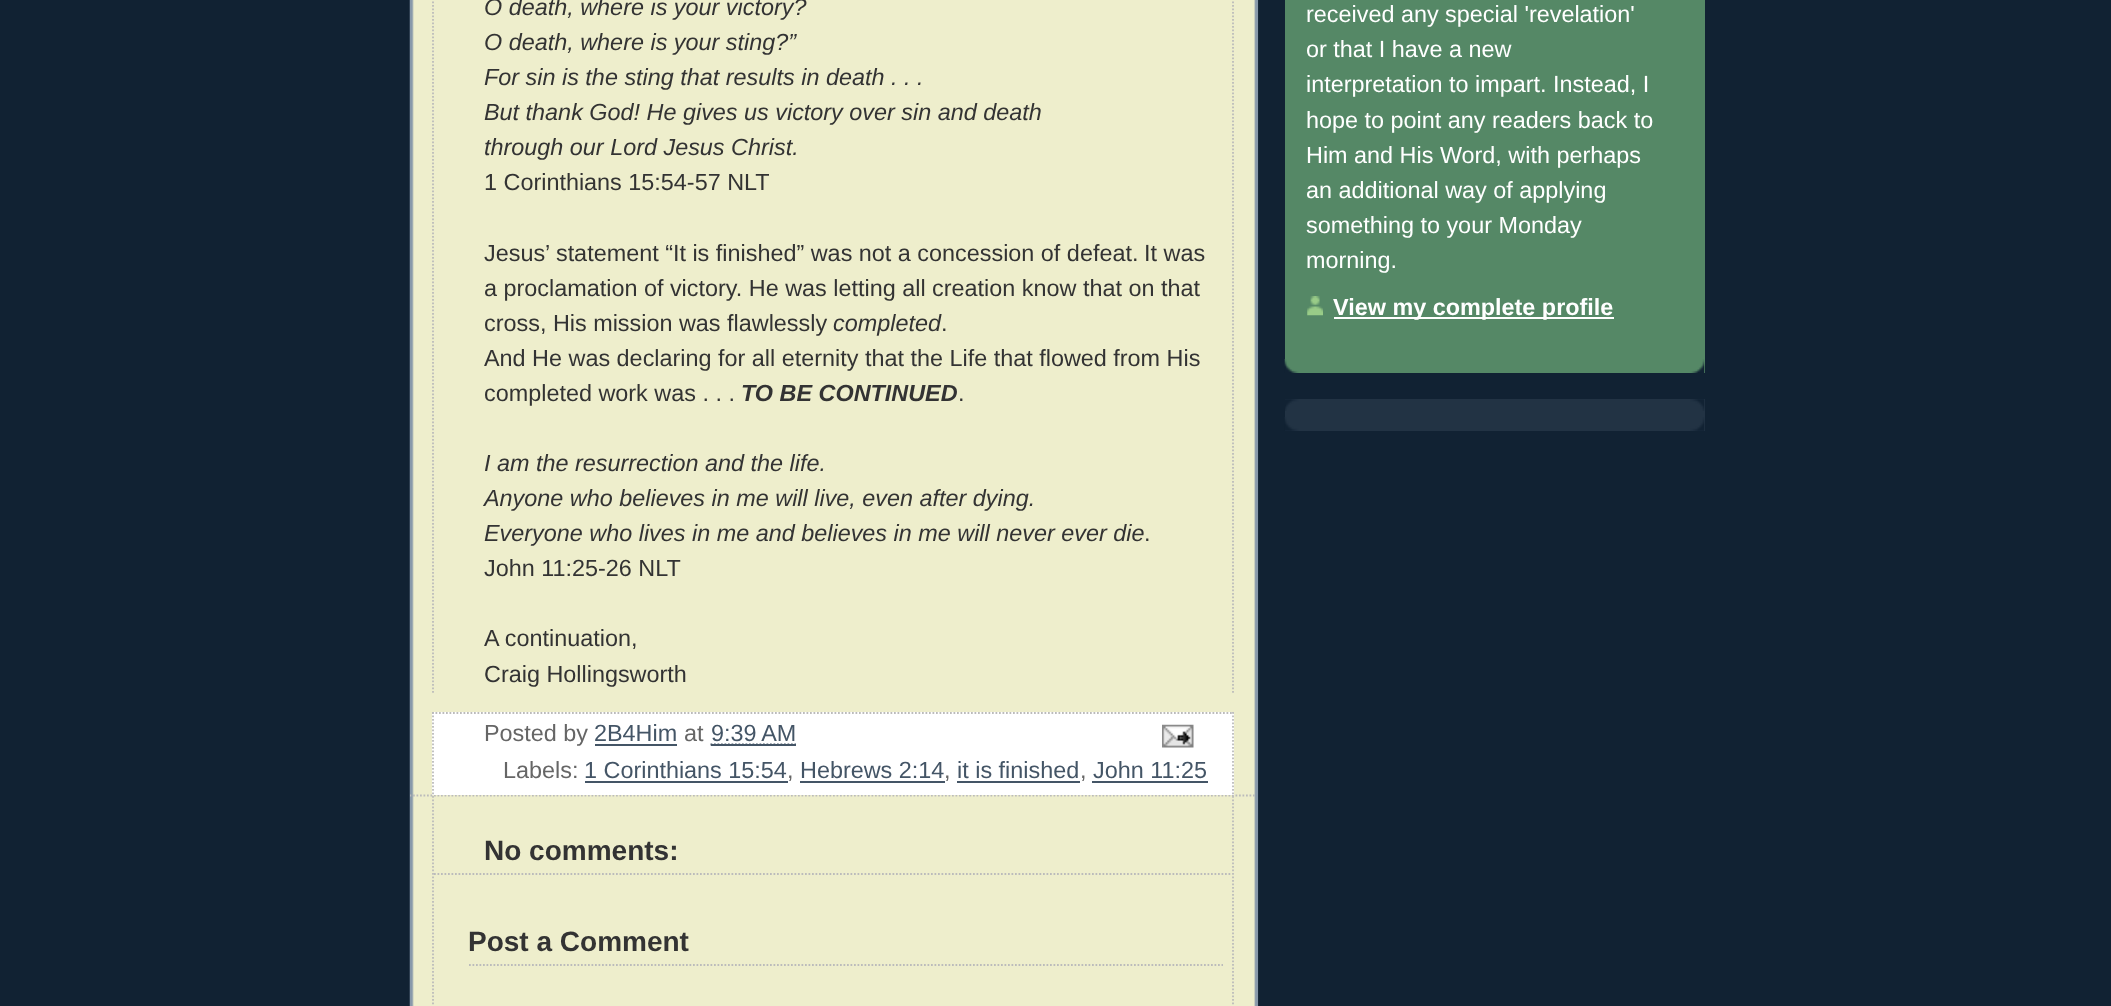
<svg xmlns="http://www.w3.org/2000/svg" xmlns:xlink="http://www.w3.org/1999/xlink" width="2111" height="1006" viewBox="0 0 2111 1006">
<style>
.cls-1{font:italic 23.4px Liberation Sans;fill:#333333}
.cls-2{font:23.4px Liberation Sans;fill:#333333}
.cls-3{font:italic bold 23.4px Liberation Sans;fill:#333333}
.cls-4{font:23.4px Liberation Sans;fill:#666666}
.cls-5{font:23.4px Liberation Sans;fill:#445566}
.cls-6{font:bold 28px Liberation Sans;fill:#333333}
.cls-7{font:23.4px Liberation Sans;fill:#ffffff}
.cls-8{font:bold 23.4px Liberation Sans;fill:#ffffff}
</style>
<defs>
<clipPath id="clip1"><rect x="410" y="0" width="848" height="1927"/></clipPath>
</defs>
<rect width="100%" height="100%" fill="#112233"/>
<rect fill="#eeeecc" x="412" y="0" width="844" height="1006"/>
<image xlink:href="image0.png" x="409" y="0" width="850" height="1006"/>
<g clip-path="url(#clip1)">
<path fill="none" stroke="#bbbbbb" stroke-width="1.8" stroke-dasharray="1.75 1.75" d="M409.5 795.5H1256.5"/>
</g>
<path fill="none" stroke="#bbbbbb" stroke-width="1.8" stroke-dasharray="1.75 1.75" d="M1233-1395V693"/>
<path fill="none" stroke="#bbbbbb" stroke-width="1.8" stroke-dasharray="1.75 1.75" d="M433-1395V693"/>
<rect fill="#ffffff" x="432" y="712" width="802" height="83"/>
<path fill="none" stroke="#bbbbbb" stroke-width="1.8" stroke-dasharray="1.75 1.75" d="M432 713H1234"/>
<path fill="none" stroke="#bbbbbb" stroke-width="1.8" stroke-dasharray="1.75 1.75" d="M1233 712V794.5"/>
<path fill="none" stroke="#bbbbbb" stroke-width="1.8" stroke-dasharray="1.75 1.75" d="M433 712V794.5"/>
<rect fill="#445566" x="595" y="744" width="82" height="2"/>
<path fill="none" stroke="#445566" stroke-width="1.8" stroke-dasharray="1.75 1.75" d="M710.5 744.5H796"/>
<rect fill="#445566" x="711" y="744" width="85" height="2"/>
<image xlink:href="image1.png" x="1162" y="724" width="32" height="24"/>
<rect fill="#445566" x="585" y="781" width="203" height="2"/>
<rect fill="#445566" x="800" y="781" width="145" height="2"/>
<rect fill="#445566" x="957" y="781" width="123" height="2"/>
<rect fill="#445566" x="1092" y="781" width="116" height="2"/>
<path fill="none" stroke="#bbbbbb" stroke-width="1.8" stroke-dasharray="1.75 1.75" d="M1233 796V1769"/>
<path fill="none" stroke="#bbbbbb" stroke-width="1.8" stroke-dasharray="1.75 1.75" d="M433 796V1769"/>
<path fill="none" stroke="#bbbbbb" stroke-width="1.8" stroke-dasharray="1.75 1.75" d="M434 874H1232"/>
<path fill="none" stroke="#bbbbbb" stroke-width="1.8" stroke-dasharray="1.75 1.75" d="M469 965H1223"/>
<rect fill="#558866" x="1285" y="0" width="420" height="373"/>
<image xlink:href="image2.png" x="1284" y="359" width="421" height="14"/>
<image xlink:href="image3.png" x="1307" y="296" width="16" height="20"/>
<rect fill="#ffffff" x="1334" y="317" width="280" height="2"/>
<rect fill="#223344" x="1285" y="399" width="420" height="32"/>
<image xlink:href="image4.png" x="1285" y="399" width="420" height="12"/>
<image xlink:href="image5.png" x="1284" y="417" width="421" height="14"/>
<text class="cls-1"><tspan x="484" y="15">O death, where is your victory?</tspan><tspan x="484" y="50">O death, where is your sting?”</tspan><tspan x="484" y="85">For sin is the sting that results in death . . .</tspan><tspan x="484" y="120">But thank God! He gives us victory over sin and death</tspan><tspan x="484" y="155">through our Lord Jesus Christ.</tspan></text>
<text class="cls-2" x="484" y="190">1 Corinthians 15:54-57 NLT</text>
<text class="cls-2" x="484" y="261">Jesus’ statement “It is finished” was not a concession of defeat.</text>
<text class="cls-2" x="1144" y="261">It was</text>
<text class="cls-2"><tspan x="484" y="296">a proclamation of victory. He was letting all creation know that on that</tspan><tspan x="484" y="331">cross, His mission was flawlessly</tspan></text>
<text class="cls-1" x="833" y="331">completed</text>
<text class="cls-2" x="941" y="331">.</text>
<text class="cls-2"><tspan x="484" y="366">And He was declaring for all eternity that the Life that flowed from His</tspan><tspan x="484" y="401">completed work was . . .</tspan></text>
<text class="cls-3" x="741" y="401">TO BE CONTINUED</text>
<text class="cls-2" x="958" y="401">.</text>
<text class="cls-1"><tspan x="484" y="471">I am the resurrection and the life.</tspan><tspan x="484" y="506">Anyone who believes in me will live, even after dying.</tspan><tspan x="484" y="541">Everyone who lives in me and believes in me will never ever die</tspan></text>
<text class="cls-2" x="1144" y="541">.</text>
<text class="cls-2" x="484" y="576">John 11:25-26 NLT</text>
<text class="cls-2"><tspan x="484" y="646">A continuation,</tspan><tspan x="484" y="682">Craig Hollingsworth</tspan></text>
<text class="cls-4" x="484" y="741">Posted by</text>
<text class="cls-5" x="594" y="741">2B4Him</text>
<text class="cls-4" x="684" y="741">at</text>
<text class="cls-5" x="711" y="741">9:39 AM</text>
<text class="cls-4" x="503" y="778">Labels:</text>
<text class="cls-5" x="584" y="778">1 Corinthians 15:54</text>
<text class="cls-4" x="787" y="778">,</text>
<text class="cls-5" x="800" y="778">Hebrews 2:14</text>
<text class="cls-4" x="944" y="778">,</text>
<text class="cls-5" x="957" y="778">it is finished</text>
<text class="cls-4" x="1080" y="778">,</text>
<text class="cls-5" x="1093" y="778">John 11:25</text>
<text class="cls-6" x="484" y="860">No comments:</text>
<text class="cls-6" x="468" y="951">Post a Comment</text>
<text class="cls-7"><tspan x="1306" y="22">received any special 'revelation'</tspan><tspan x="1306" y="57">or that I have a new</tspan><tspan x="1306" y="92">interpretation to impart. Instead, I</tspan><tspan x="1306" y="128">hope to point any readers back to</tspan><tspan x="1306" y="163">Him and His Word, with perhaps</tspan><tspan x="1306" y="198">an additional way of applying</tspan><tspan x="1306" y="233">something to your Monday</tspan><tspan x="1306" y="268">morning.</tspan></text>
<text class="cls-8" x="1333" y="315">View my complete profile</text>
</svg>
